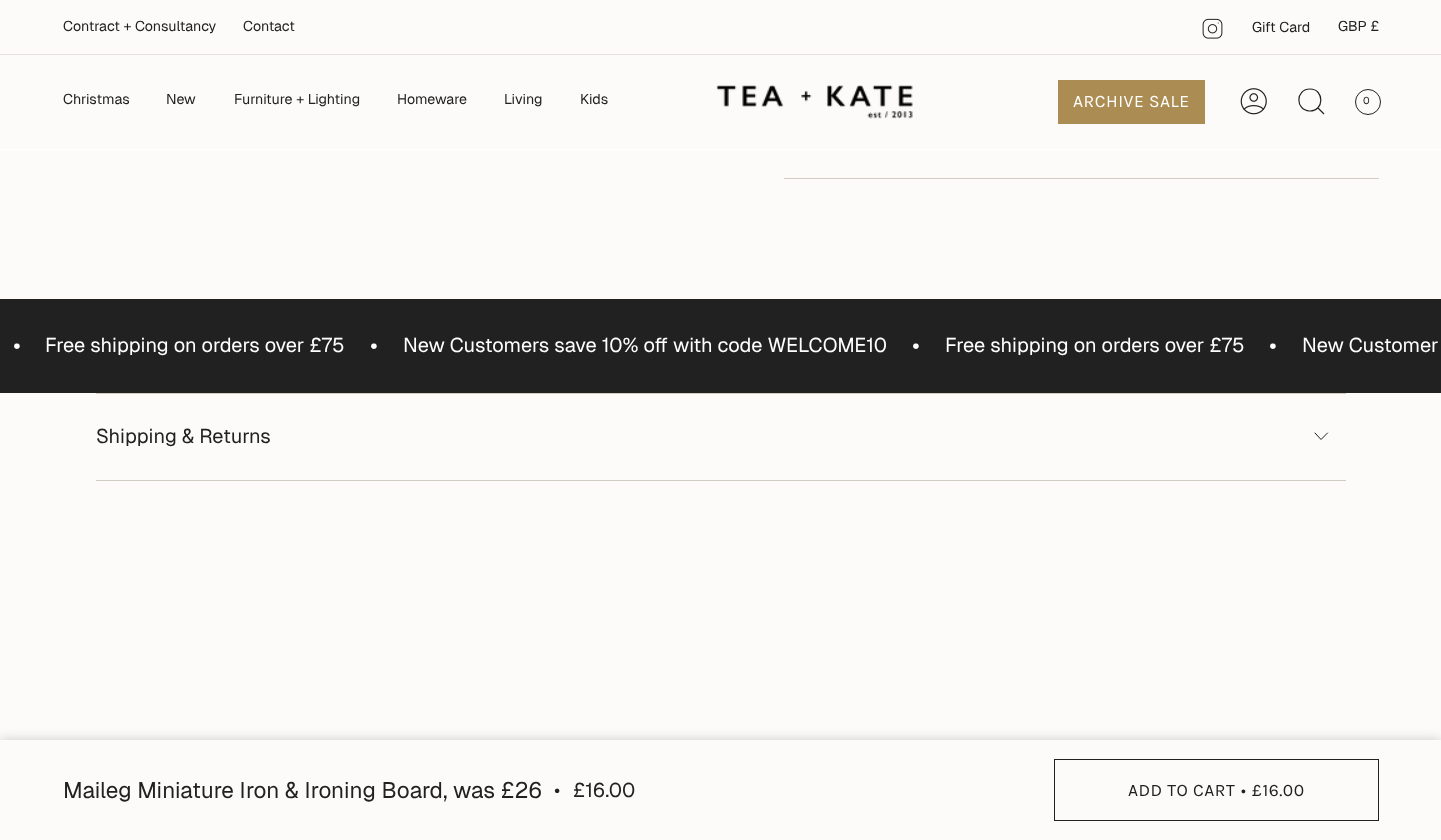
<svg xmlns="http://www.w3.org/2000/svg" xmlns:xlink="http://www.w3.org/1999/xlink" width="1441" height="840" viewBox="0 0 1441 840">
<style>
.cls-1{font:14.25px Geist;fill:#212121}
.cls-2{font:17.5px Karla;letter-spacing:0.5px;fill:#ffffff}
.cls-3{font:10px Geist;fill:#212121}
.cls-4{font:25px Geist;fill:#ffffff}
.cls-5{font:20px Geist;fill:#ffffff}
.cls-6{font:20px Geist;fill:#212121}
.cls-7{font:22.5px Geist;fill:#212121}
.cls-8{font:17.5px Karla;letter-spacing:0.5px;fill:#212121}
</style>
<rect width="100%" height="100%" fill="#fcfbf9"/>
<image xlink:href="image0.png" x="1202" y="18" width="21" height="21"/>
<rect fill="#e7e4df" x="0" y="54" width="1441" height="1"/>
<image xlink:href="image1.png" x="716" y="85" width="197" height="34"/>
<rect fill="#ab8c52" x="1058" y="80" width="147" height="44"/>
<image xlink:href="image2.png" x="1240" y="88" width="27" height="27"/>
<path fill="none" stroke="#212121" stroke-width="1.2" d="M1310 89C1324.5 89 1324.5 111.5 1309.5 111C1295 110 1295.5 89 1310 89ZM1317.5 107.5L1324 114"/>
<circle fill="none" stroke="#212121" cx="1368" cy="102" r="12.5"/>
<rect fill="#ffffff" x="0" y="149" width="1441" height="1"/>
<rect fill="#212121" x="0" y="299" width="1441" height="94"/>
<rect fill="#d1cdc4" x="96" y="393" width="1250" height="1"/>
<rect fill="#d1cdc4" x="96" y="480" width="1250" height="1"/>
<path fill="none" stroke="#212121" stroke-linecap="round" stroke-linejoin="round" d="M1315 433L1321 439.5L1327.5 433"/>
<rect fill="#d1cdc4" x="784" y="178" width="595" height="1"/>
<rect fill="#000000" fill-opacity="0.2" filter="blur(6px)" x="0" y="740" width="1441" height="100"/>
<rect fill="#fcfbf9" x="0" y="740" width="1441" height="100"/>
<rect fill="none" stroke="#212121" x="1054.5" y="759.5" width="324" height="61"/>
<text class="cls-1" x="63" y="31">Contract + Consultancy</text>
<text class="cls-1" x="243" y="31">Contact</text>
<text class="cls-1" x="1252" y="32">Gift Card</text>
<text class="cls-1" x="1338" y="31">GBP £</text>
<text class="cls-1" x="63" y="104">Christmas</text>
<text class="cls-1" x="166" y="104">New</text>
<text class="cls-1" x="234" y="104">Furniture + Lighting</text>
<text class="cls-1" x="397" y="104">Homeware</text>
<text class="cls-1" x="504" y="104">Living</text>
<text class="cls-1" x="580" y="104">Kids</text>
<text class="cls-2" x="1073" y="107">ARCHIVE SALE</text>
<text class="cls-3" x="1363" y="104">0</text>
<text class="cls-4" x="13" y="354">•</text>
<text class="cls-5" x="45" y="352">Free shipping on orders over £75</text>
<text class="cls-4" x="370" y="354">•</text>
<text class="cls-5" x="403" y="352">New Customers save 10% off with code WELCOME10</text>
<text class="cls-4" x="912" y="354">•</text>
<text class="cls-5" x="945" y="352">Free shipping on orders over £75</text>
<text class="cls-4" x="1269" y="354">•</text>
<text class="cls-5" x="1302" y="352">New Customer</text>
<text class="cls-6" x="96" y="443">Shipping &amp; Returns</text>
<text class="cls-7" x="63" y="798">Maileg Miniature Iron &amp; Ironing Board, was £26</text>
<text class="cls-6" x="554" y="797">•</text>
<text class="cls-6" x="573" y="797">£16.00</text>
<text class="cls-8" x="1128" y="796">ADD TO CART</text>
<text class="cls-8" x="1241" y="796">•</text>
<text class="cls-8" x="1252" y="796">£16.00</text>
</svg>
